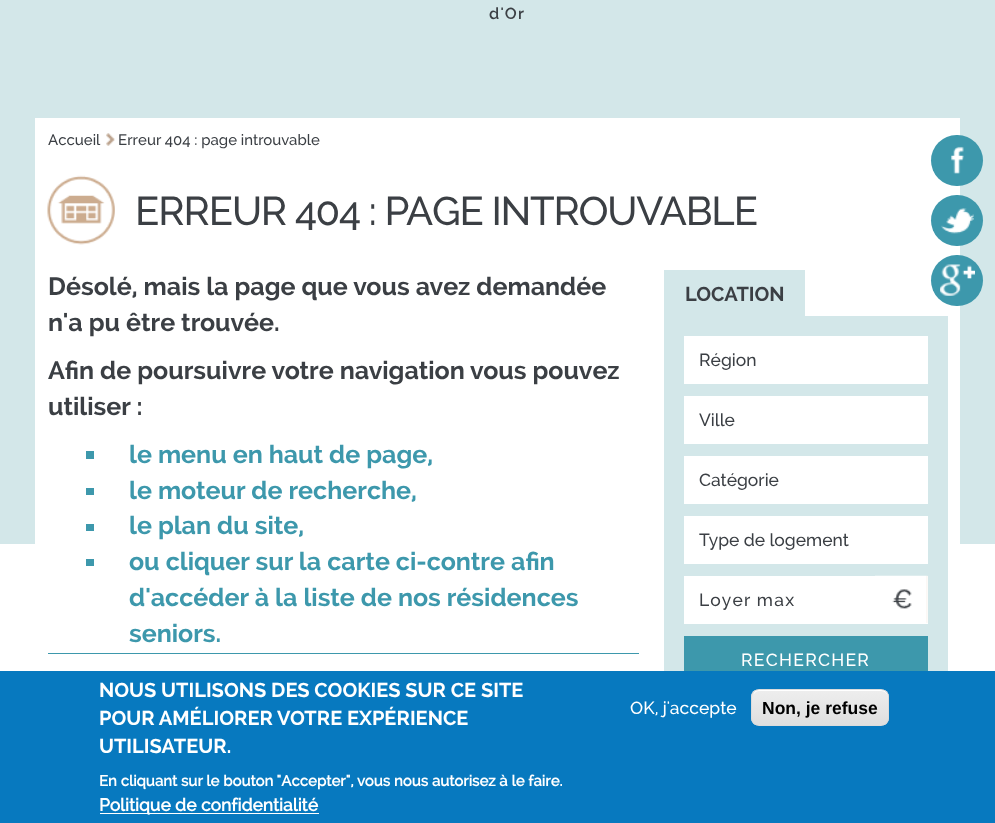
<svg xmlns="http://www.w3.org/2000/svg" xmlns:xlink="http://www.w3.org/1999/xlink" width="995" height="823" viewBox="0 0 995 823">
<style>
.cls-1{font:600 16px Raleway;letter-spacing:1.25px;fill:#3b3f44}
.cls-2{font:500 15px Raleway;fill:#3b3f44}
.cls-3{font:500 40px Raleway;letter-spacing:-1.25px;fill:#3b3f44}
.cls-4{font:bold 25px Raleway;fill:#3b3f44}
.cls-5{font:bold 25px Raleway;fill:#3d98ac}
.cls-6{font:bold 20px Raleway;fill:#3b3f44}
.cls-7{font:500 17.5px Raleway;fill:#3b3f44}
.cls-8{font:500 17.5px Raleway;letter-spacing:1.25px;fill:#3b3f44}
.cls-9{font:500 17.5px Raleway;letter-spacing:1.25px;fill:#ffffff}
.cls-10{font:bold 20px Raleway;fill:#ffffff}
.cls-11{font:bold 15px 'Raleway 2';fill:#ffffff}
.cls-12{font:bold 17.5px 'Raleway 2';fill:#ffffff}
.cls-13{font:500 17.5px Raleway;fill:#ffffff}
.cls-14{font:bold 17.5px Liberation Sans;fill:#000000}
</style>
<defs>
<clipPath id="clip1"><rect x="751" y="689" width="138" height="37" rx="8"/></clipPath>
<linearGradient id="g1" gradientUnits="userSpaceOnUse" x1="820" y1="690" x2="820" y2="725"><stop offset="0.05" stop-color="#ededed"/><stop offset="1" stop-color="#dfdfdf"/></linearGradient>
</defs>
<rect width="100%" height="100%" fill="#ffffff"/>
<rect fill="#d3e7e9" x="0" y="0" width="995" height="544"/>
<rect fill="#ffffff" x="35" y="118" width="925" height="426"/>
<image xlink:href="image0.png" x="106" y="133" width="9" height="13"/>
<image xlink:href="image1.png" x="47" y="175" width="68" height="70"/>
<rect fill="#3d98ac" x="48" y="653" width="591" height="1"/>
<rect fill="#3d98ac" x="86" y="451" width="8" height="8"/>
<rect fill="#3d98ac" x="86" y="488" width="8" height="7"/>
<rect fill="#3d98ac" x="86" y="524" width="8" height="7"/>
<rect fill="#3d98ac" x="86" y="559" width="8" height="7"/>
<rect fill="#d3e7e9" x="664" y="270" width="141" height="46"/>
<rect fill="#d3e7e9" x="664" y="316" width="284" height="355"/>
<rect fill="#ffffff" x="684" y="336" width="244" height="48"/>
<rect fill="#ffffff" x="684" y="396" width="244" height="48"/>
<rect fill="#ffffff" x="684" y="456" width="244" height="48"/>
<rect fill="#ffffff" x="684" y="516" width="244" height="48"/>
<rect fill="#ffffff" x="684" y="576" width="244" height="48"/>
<image xlink:href="image2.png" x="875" y="575" width="53" height="48"/>
<rect fill="#3d98ac" x="684" y="636" width="244" height="35"/>
<rect fill="#3d98ac" x="931" y="135" width="52" height="51" rx="25.5"/>
<image xlink:href="image3.png" x="951" y="146" width="13" height="28"/>
<rect fill="#3d98ac" x="931" y="195" width="52" height="51" rx="25.5"/>
<image xlink:href="image4.png" x="941" y="208" width="33" height="26"/>
<rect fill="#3d98ac" x="931" y="255" width="52" height="51" rx="25.5"/>
<image xlink:href="image5.png" x="940" y="264" width="35" height="32"/>
<rect fill="#0779bf" x="0" y="671" width="995" height="152"/>
<rect fill="#ffffff" x="100" y="813" width="219" height="1"/>
<g clip-path="url(#clip1)">
<rect fill="url(#g1)" x="751" y="690" width="138" height="35"/>
</g>
<path fill="#ffffff" d="M759 691H881C885 691 888 694 888 698V696C888 693 885 690 882 690H759C757 690 754 691 754 694C755 692 757 691 759 691Z"/>
<rect fill="none" stroke="#dcdcdc" x="751.5" y="689.5" width="137" height="36" rx="7.5"/>
<text class="cls-1" x="489" y="19">d'Or</text>
<text class="cls-2" x="48" y="145">Accueil</text>
<text class="cls-2" x="118" y="145">Erreur 404 : page introuvable</text>
<text class="cls-3" x="135" y="225">ERREUR 404 : PAGE INTROUVABLE</text>
<text class="cls-4"><tspan x="48" y="295">Désolé, mais la page que vous avez demandée</tspan><tspan x="48" y="331">n'a pu être trouvée.</tspan><tspan x="48" y="379">Afin de poursuivre votre navigation vous pouvez</tspan><tspan x="48" y="415">utiliser :</tspan></text>
<text class="cls-5"><tspan x="129" y="463">le menu en haut de page,</tspan><tspan x="129" y="499">le moteur de recherche,</tspan><tspan x="129" y="534">le plan du site,</tspan><tspan x="129" y="570">ou cliquer sur la carte ci-contre afin</tspan><tspan x="129" y="606">d'accéder à la liste de nos résidences</tspan><tspan x="129" y="642">seniors.</tspan></text>
<text class="cls-6" x="685" y="301">LOCATION</text>
<text class="cls-7" x="699" y="366">Région</text>
<text class="cls-7" x="699" y="426">Ville</text>
<text class="cls-7" x="699" y="486">Catégorie</text>
<text class="cls-7" x="699" y="546">Type de logement</text>
<text class="cls-8" x="699" y="606">Loyer max</text>
<text class="cls-9" x="741" y="666">RECHERCHER</text>
<text class="cls-10"><tspan x="99" y="697">NOUS UTILISONS DES COOKIES SUR CE SITE</tspan><tspan x="99" y="725">POUR AMÉLIORER VOTRE EXPÉRIENCE</tspan><tspan x="99" y="753">UTILISATEUR.</tspan></text>
<text class="cls-11" x="99" y="786">En cliquant sur le bouton "Accepter", vous nous autorisez à le faire.</text>
<text class="cls-12" x="99" y="811">Politique de confidentialité</text>
<text class="cls-13" x="630" y="714">OK, j'accepte</text>
<text class="cls-14" x="762" y="714">Non, je refuse</text>
</svg>
